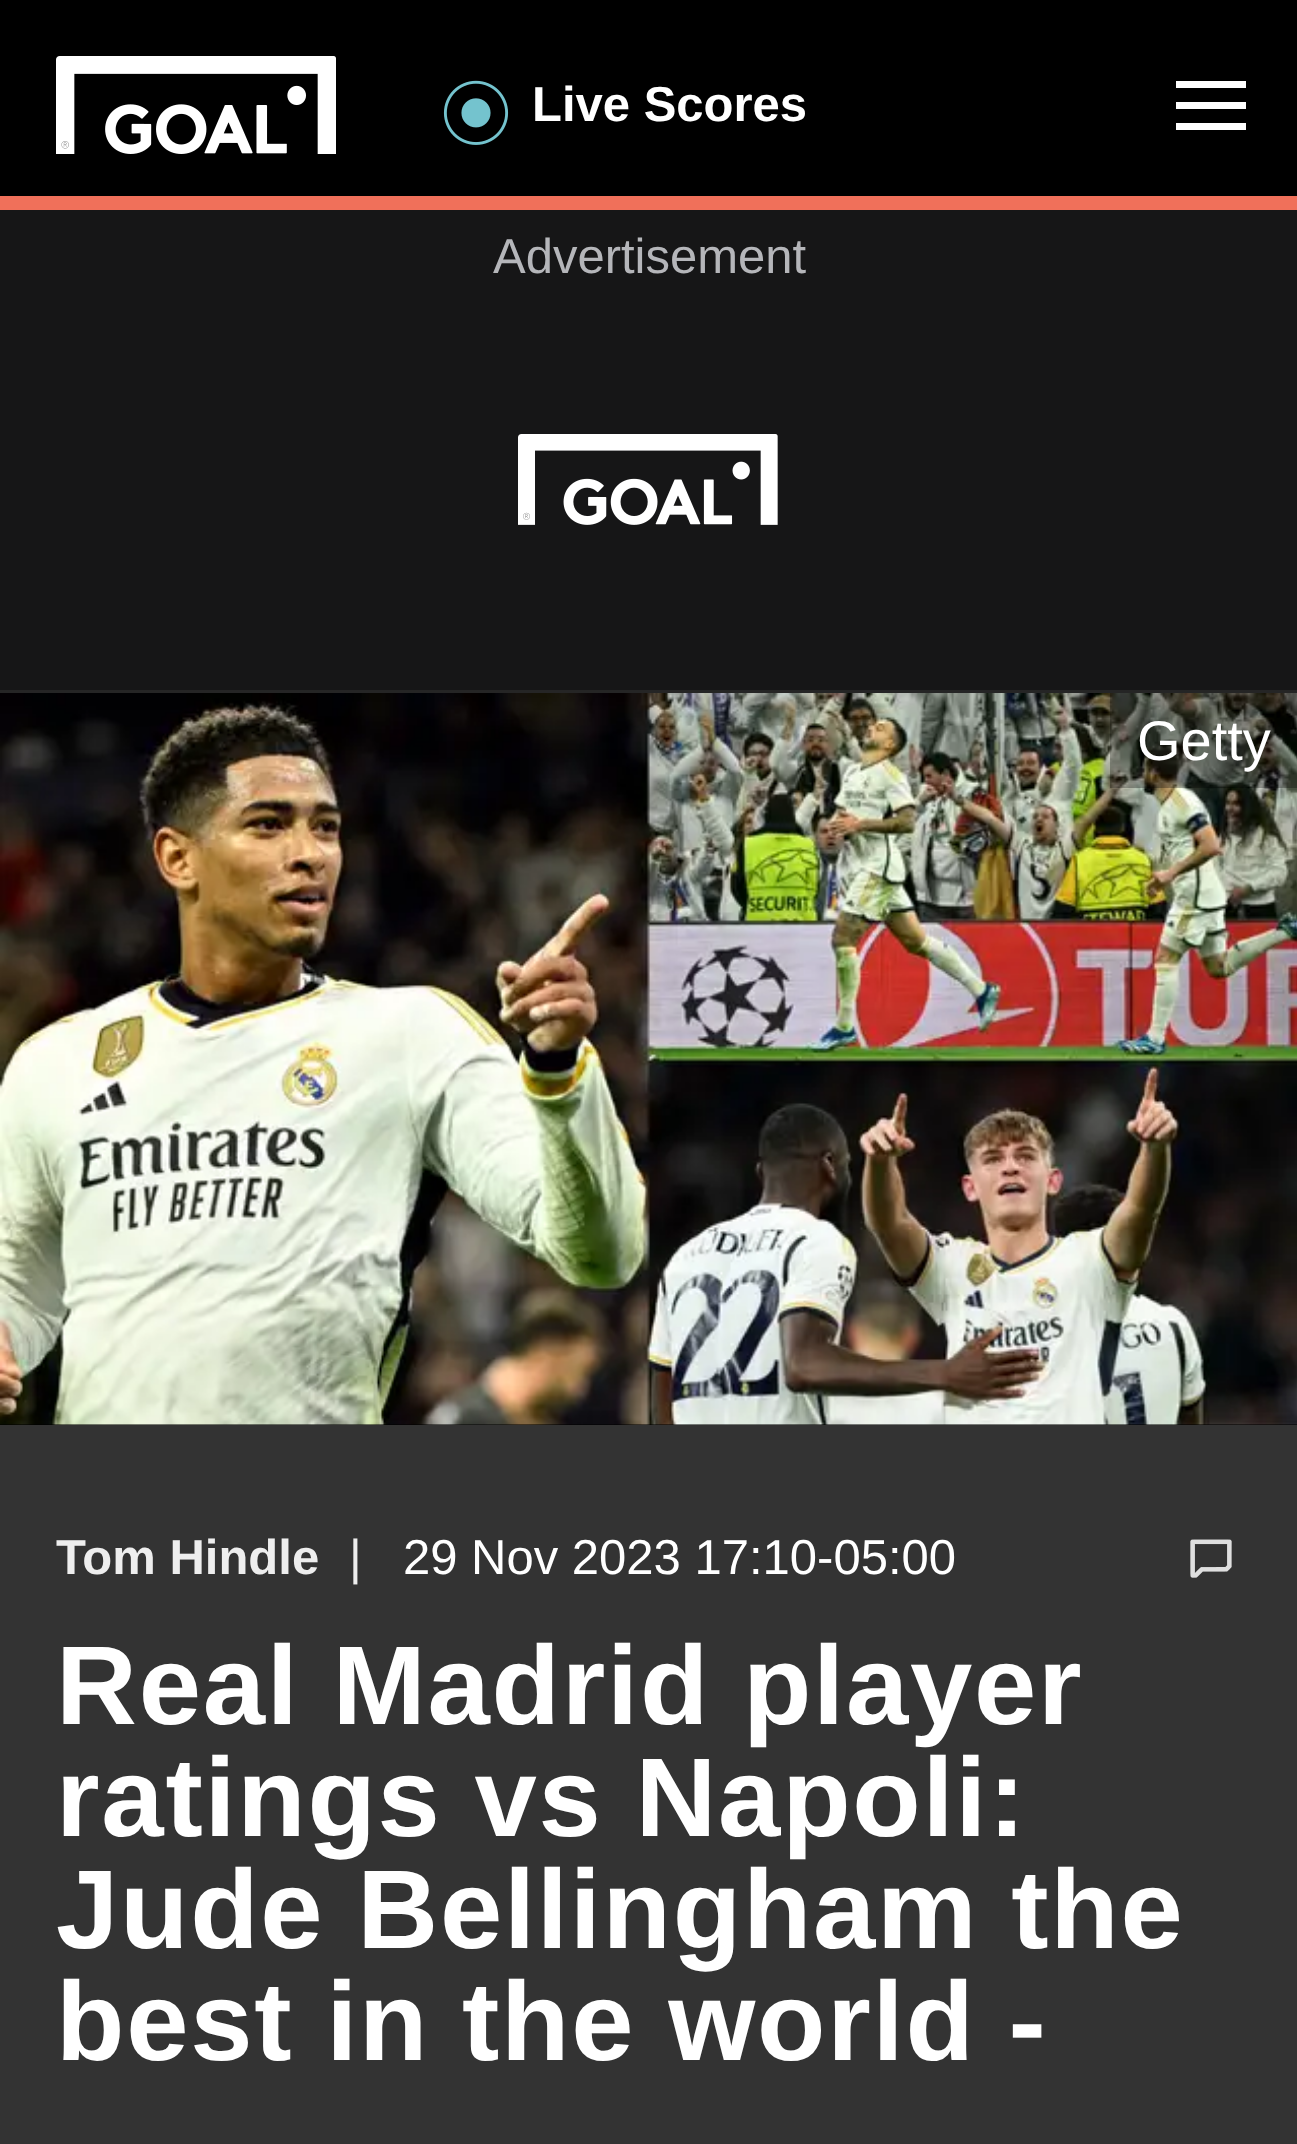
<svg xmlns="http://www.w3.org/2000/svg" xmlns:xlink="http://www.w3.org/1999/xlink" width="1297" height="2144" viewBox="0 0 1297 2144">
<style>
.cls-1{font:bold 49px Liberation Sans;fill:#ffffff}
.cls-2{font:49px Liberation Sans;fill:#b5b6ba}
.cls-3{font:56px Liberation Sans;fill:#ffffff}
.cls-4{font:bold 49px Liberation Sans;fill:#eeeeee}
.cls-5{font:49px Liberation Sans;fill:#eeeeee}
.cls-6{font:49px Liberation Sans;fill:#ffffff}
.cls-7{font:bold 112px Liberation Sans;letter-spacing:1.75px;fill:#ffffff}
</style>
<rect width="100%" height="100%" fill="#252525"/>
<rect fill="#000000" x="0" y="0" width="1297" height="196"/>
<rect fill="#f0705a" x="0" y="196" width="1297" height="14"/>
<image xlink:href="image0.png" x="56" y="56" width="280" height="98"/>
<image xlink:href="image1.png" x="443" y="80" width="66" height="65"/>
<rect fill="#ffffff" x="1176" y="81" width="70" height="7"/>
<rect fill="#ffffff" x="1176" y="102" width="70" height="7"/>
<rect fill="#ffffff" x="1176" y="123" width="70" height="7"/>
<rect fill="#161617" x="0" y="210" width="1297" height="480"/>
<image xlink:href="image2.png" x="518" y="434" width="260" height="91"/>
<rect fill="#000000" x="0" y="1424" width="1297" height="1"/>
<image xlink:href="image3.png" x="0" y="693" width="1297" height="732"/>
<rect fill="#000000" fill-opacity="0.3" x="1110" y="693" width="187" height="95"/>
<rect fill="#333333" x="0" y="1425" width="1297" height="719"/>
<image xlink:href="image4.png" x="1190" y="1539" width="42" height="39"/>
<text class="cls-1" x="532" y="121">Live Scores</text>
<text class="cls-2" x="493" y="273">Advertisement</text>
<text class="cls-3" x="1137" y="760">Getty</text>
<text class="cls-4" x="56" y="1574">Tom Hindle</text>
<text class="cls-5" x="349" y="1574">|</text>
<text class="cls-6" x="403" y="1574">29 Nov 2023 17:10-05:00</text>
<text class="cls-7"><tspan x="56" y="1724">Real Madrid player</tspan><tspan x="56" y="1836">ratings vs Napoli:</tspan><tspan x="56" y="1948">Jude Bellingham the</tspan><tspan x="56" y="2060">best in the world -</tspan></text>
</svg>
